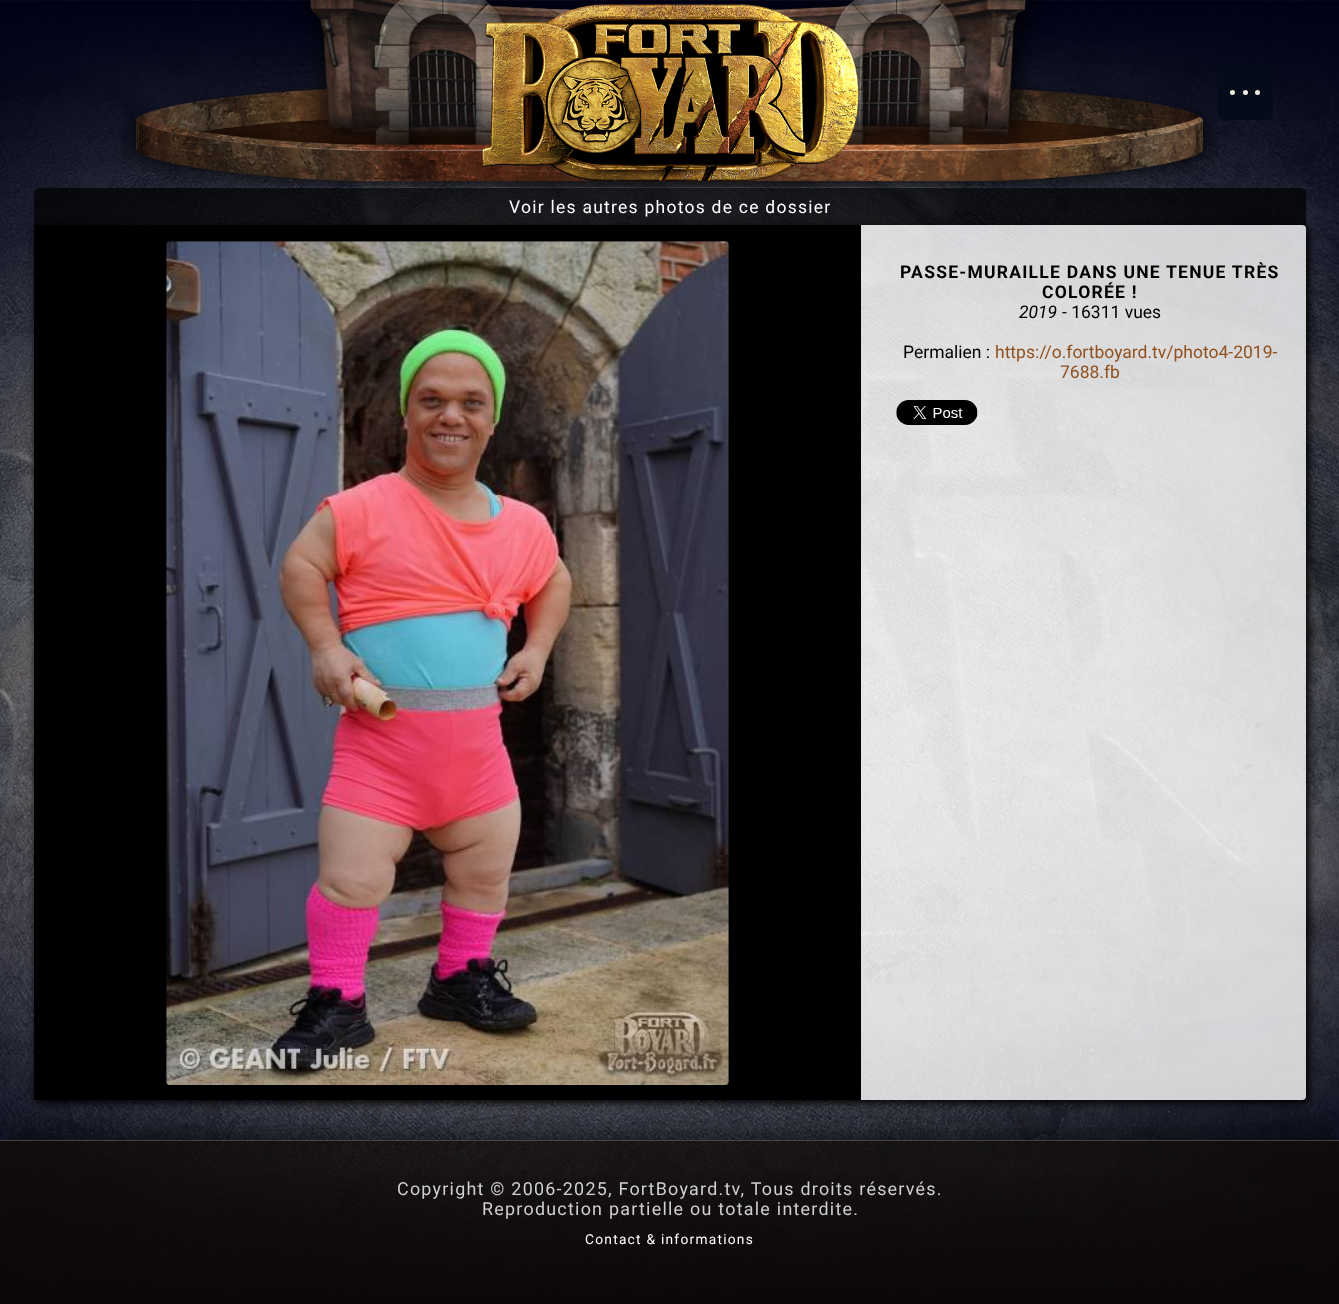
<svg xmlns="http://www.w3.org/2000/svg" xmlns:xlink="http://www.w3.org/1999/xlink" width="1339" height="1304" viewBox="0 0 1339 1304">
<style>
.cls-1{font:17.5px Roboto;letter-spacing:1.25px;fill:#ffffff}
.cls-2{font:bold 17.5px Roboto;letter-spacing:1.25px;fill:#000000}
.cls-3{font:italic 17.5px Roboto;fill:#000000}
.cls-4{font:17.5px Roboto;fill:#000000}
.cls-5{font:17.5px Roboto;fill:#914f1d}
.cls-6{font:17.9px Roboto;letter-spacing:1.25px;fill:#d0cfd0}
.cls-7{font:13.75px Roboto;letter-spacing:1.25px;fill:#ffffff}
</style>
<defs>
<clipPath id="clip1"><path d="M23 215H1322V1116H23ZM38 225H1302C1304 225 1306 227 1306 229V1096C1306 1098 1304 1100 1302 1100H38C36 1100 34 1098 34 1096V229C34 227 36 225 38 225Z" clip-rule="evenodd"/></clipPath>
<clipPath id="clip2"><rect x="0" y="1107" width="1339" height="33"/></clipPath>
</defs>
<rect width="100%" height="100%" fill="#000215"/>
<image xlink:href="image0.png" x="0" y="0" width="1339" height="1290"/>
<image xlink:href="image1.png" x="122" y="0" width="1096" height="188"/>
<image xlink:href="image2.png" x="374" y="0" width="129" height="152"/>
<image xlink:href="image3.png" x="834" y="0" width="131" height="152"/>
<image xlink:href="image4.png" x="137" y="116" width="1066" height="66"/>
<image xlink:href="image5.png" x="481" y="4" width="378" height="184"/>
<rect fill="#030d18" fill-opacity="0.96" x="1218" y="65" width="55" height="55" rx="5"/>
<circle fill="#f0eee1" cx="1245.5" cy="92.5" r="2.5"/>
<circle fill="#f0eee1" cx="1232.5" cy="92.5" r="2.5"/>
<circle fill="#f0eee1" cx="1257.5" cy="92.5" r="2.5"/>
<path fill="#000000" fill-opacity="0.7" d="M40 188H1300C1303.5 188 1306 190.5 1306 194V225H34V194C34 190.5 36.5 188 40 188Z"/>
<g clip-path="url(#clip1)">
<rect fill="#000000" filter="blur(4px)" x="36" y="228" width="1273" height="875" rx="4"/>
</g>
<rect fill="#ffffff" fill-opacity="0.8" x="34" y="225" width="1272" height="875" rx="4"/>
<rect fill="#000000" x="34" y="225" width="827" height="875"/>
<image xlink:href="image6.png" x="166" y="241" width="563" height="844"/>
<image xlink:href="image7.png" x="896" y="400" width="82" height="25"/>
<g clip-path="url(#clip2)">
<rect fill="#000000" fill-opacity="0.5" filter="blur(15.5px)" x="0" y="1134" width="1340" height="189"/>
</g>
<rect fill="#0f0a05" fill-opacity="0.7" x="0" y="1140" width="1339" height="164"/>
<rect fill="#c8b496" fill-opacity="0.3" x="0" y="1140" width="1339" height="1"/>
<text class="cls-1" x="509" y="213">Voir les autres photos de ce dossier</text>
<text class="cls-2" x="900" y="278">PASSE-MURAILLE DANS UNE TENUE TRÈS</text>
<text class="cls-2" x="1042" y="298">COLORÉE !</text>
<text class="cls-3" x="1019" y="318">2019</text>
<text class="cls-4" x="1062" y="318">- 16311 vues</text>
<text class="cls-4" x="903" y="358">Permalien :</text>
<text class="cls-5" x="995" y="358">https://o.fortboyard.tv/photo4-2019-</text>
<text class="cls-5" x="1060" y="378">7688.fb</text>
<text class="cls-6" x="397" y="1195">Copyright © 2006-2025, FortBoyard.tv, Tous droits réservés.</text>
<text class="cls-6" x="482" y="1215">Reproduction partielle ou totale interdite.</text>
<text class="cls-7" x="585" y="1244">Contact &amp; informations</text>
</svg>
